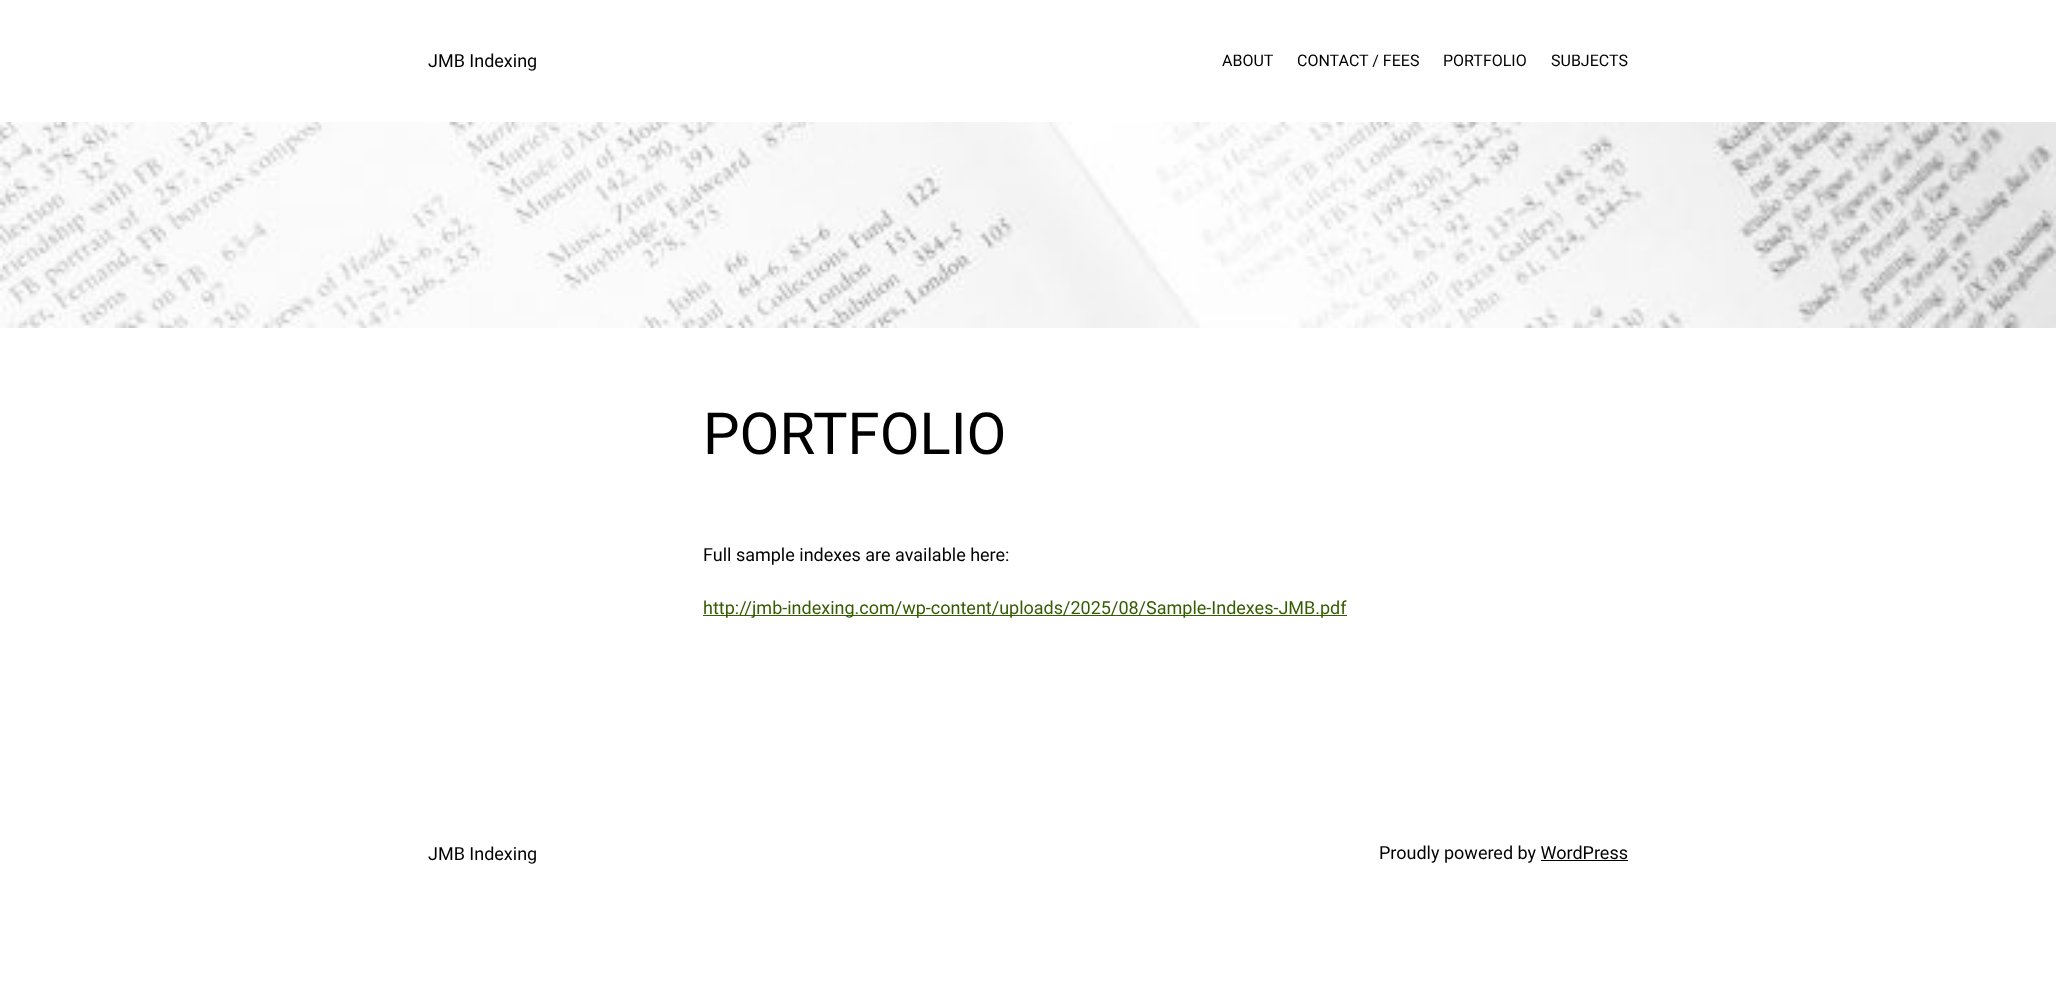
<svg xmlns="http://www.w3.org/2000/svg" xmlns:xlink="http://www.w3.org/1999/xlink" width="2056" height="1001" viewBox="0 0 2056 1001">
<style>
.cls-1{font:18px Roboto;fill:#000000}
.cls-2{font:16px Roboto;fill:#000000}
.cls-3{font:58px Roboto;fill:#000000}
.cls-4{font:18px Roboto;fill:#345c00}
</style>
<rect width="100%" height="100%" fill="#ffffff"/>
<image xlink:href="image0.png" x="0" y="122" width="2056" height="206"/>
<rect fill="#345c00" x="703" y="615" width="644" height="1"/>
<rect fill="#000000" x="1541" y="860" width="87" height="1"/>
<text class="cls-1" x="428" y="67">JMB Indexing</text>
<text class="cls-2" x="1222" y="66">ABOUT</text>
<text class="cls-2" x="1297" y="66">CONTACT / FEES</text>
<text class="cls-2" x="1443" y="66">PORTFOLIO</text>
<text class="cls-2" x="1551" y="66">SUBJECTS</text>
<text class="cls-3" x="703" y="454">PORTFOLIO</text>
<text class="cls-1" x="703" y="561">Full sample indexes are available here:</text>
<text class="cls-4" x="703" y="614">http://jmb-indexing.com/wp-content/uploads/2025/08/Sample-Indexes-JMB.pdf</text>
<text class="cls-1" x="428" y="860">JMB Indexing</text>
<text class="cls-1" x="1379" y="859">Proudly powered by WordPress</text>
</svg>
